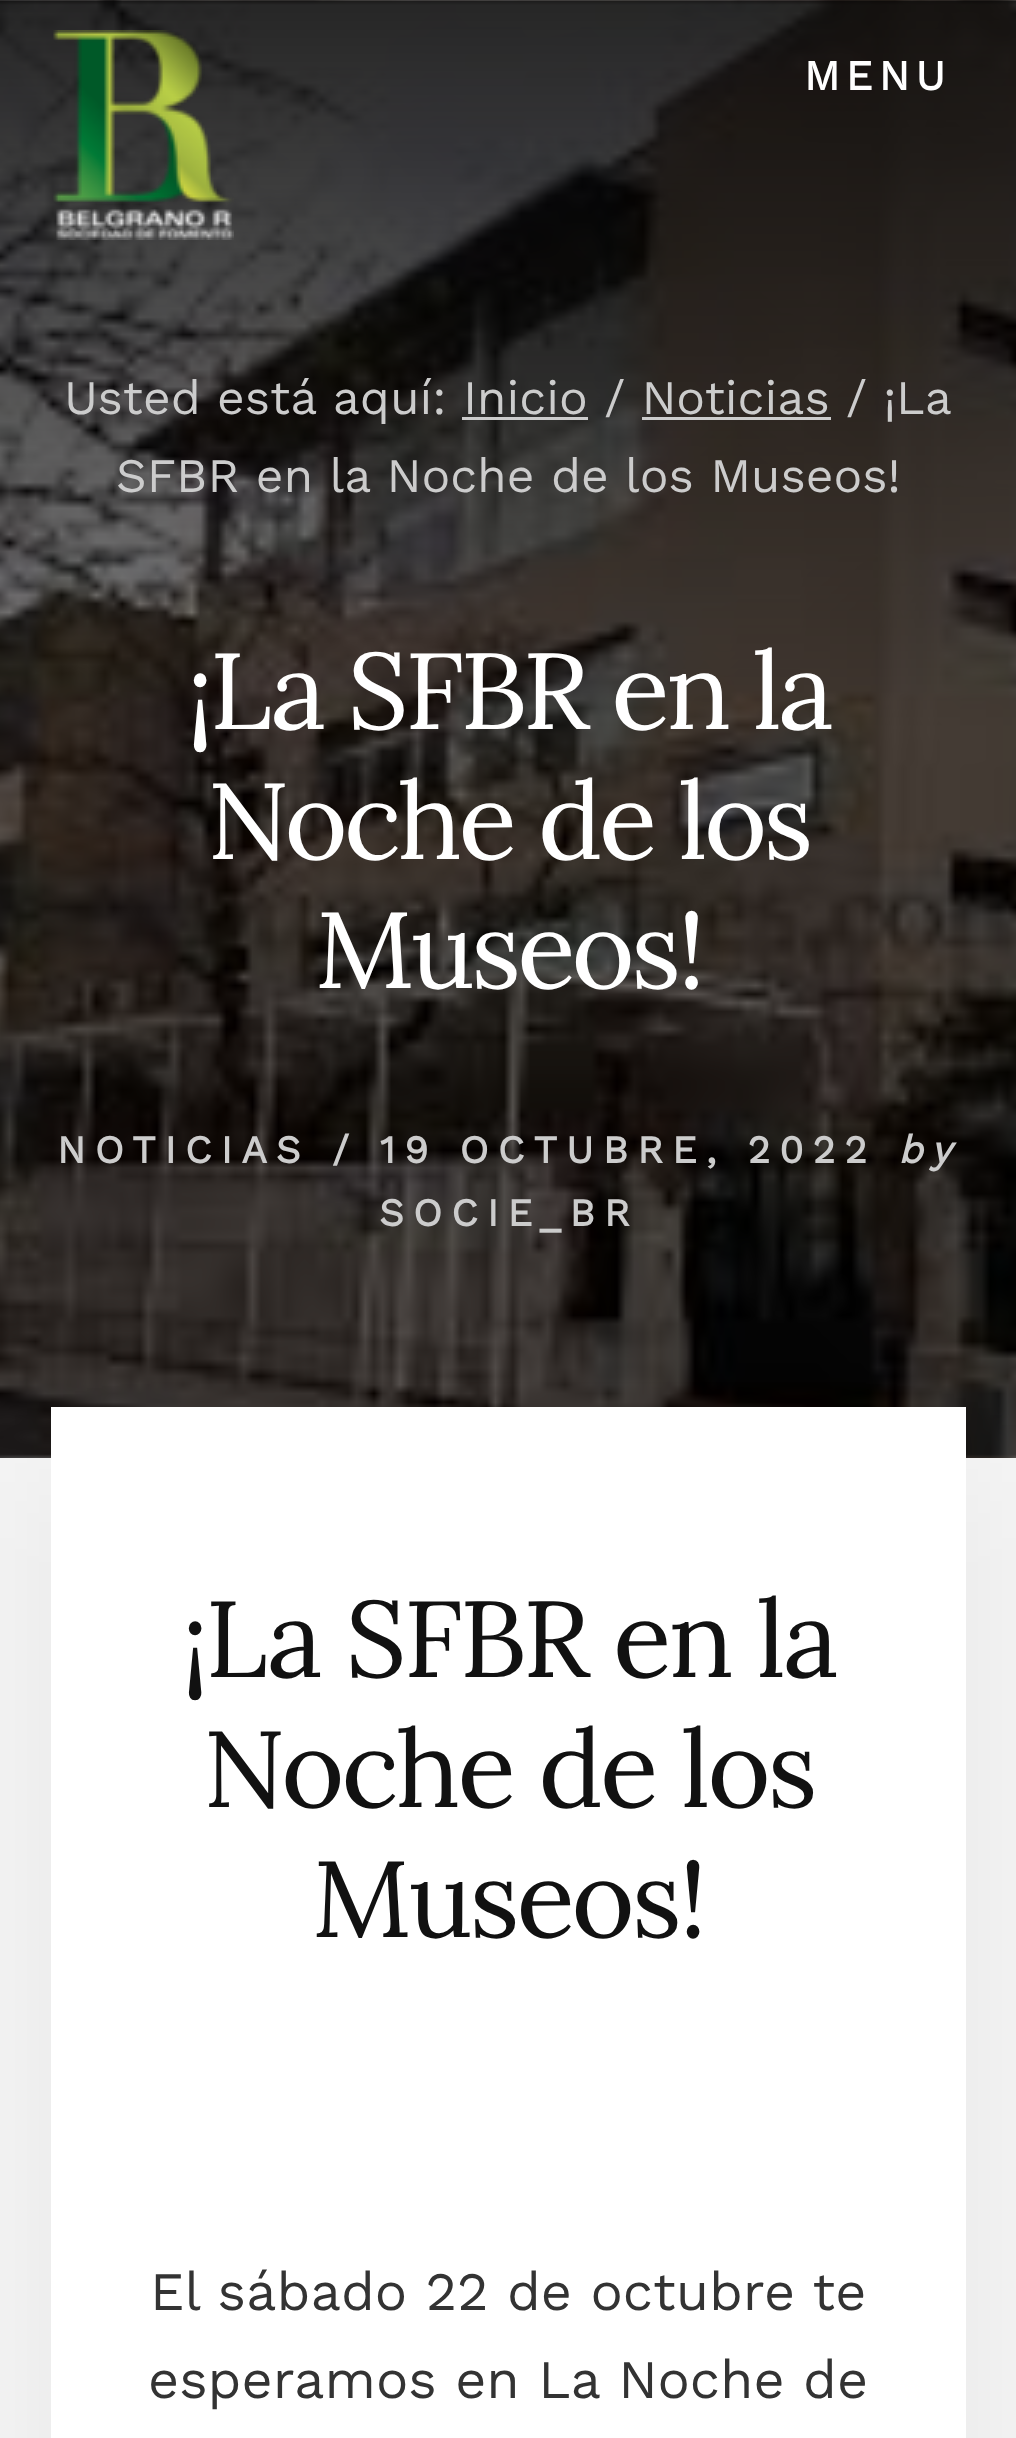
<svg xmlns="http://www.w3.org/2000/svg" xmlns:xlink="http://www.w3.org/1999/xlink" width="1016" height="2438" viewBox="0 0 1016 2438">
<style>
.cls-1{font:bold 42px Work Sans;letter-spacing:6px;fill:#ffffff}
.cls-2{font:48px Work Sans;fill:#cccccc}
.cls-3{font:108px Lora;letter-spacing:-3.75px;fill:#ffffff}
.cls-4{font:bold 39px Work Sans;letter-spacing:9px;fill:#cccccc}
.cls-5{font:italic bold 39px Work Sans;letter-spacing:9px;fill:#cccccc}
.cls-6{font:108px Lora;letter-spacing:-3px;fill:#111111}
.cls-7{font:54px Work Sans;fill:#333333}
</style>
<rect width="100%" height="100%" fill="#f4f4f4"/>
<image xlink:href="image0.png" x="0" y="0" width="1016" height="1458"/>
<image xlink:href="image1.png" x="53" y="30" width="181" height="210"/>
<rect fill="#cccccc" x="462" y="417" width="126" height="3"/>
<rect fill="#cccccc" x="642" y="417" width="189" height="3"/>
<rect fill="#000000" fill-opacity="0.05" filter="blur(60px)" x="51" y="1482" width="915" height="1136"/>
<rect fill="#ffffff" x="51" y="1407" width="915" height="1031"/>
<text class="cls-1" x="804" y="90">MENU</text>
<text class="cls-2" x="64" y="414">Usted está aquí: Inicio / Noticias / ¡La</text>
<text class="cls-2" x="116" y="492">SFBR en la Noche de los Museos!</text>
<text class="cls-3" x="187" y="729">¡La SFBR en la</text>
<text class="cls-3" x="207" y="859">Noche de los</text>
<text class="cls-3" x="315" y="988">Museos!</text>
<text class="cls-4" x="57" y="1163">NOTICIAS /</text>
<text class="cls-4" x="380" y="1163">19 OCTUBRE, 2022</text>
<text class="cls-5" x="898" y="1163">by</text>
<text class="cls-4" x="379" y="1226">SOCIE_BR</text>
<text class="cls-6" x="182" y="1677">¡La SFBR en la</text>
<text class="cls-6" x="203" y="1807">Noche de los</text>
<text class="cls-6" x="312" y="1937">Museos!</text>
<text class="cls-7" x="150" y="2310">El sábado 22 de octubre te</text>
<text class="cls-7" x="148" y="2398">esperamos en La Noche de</text>
</svg>
